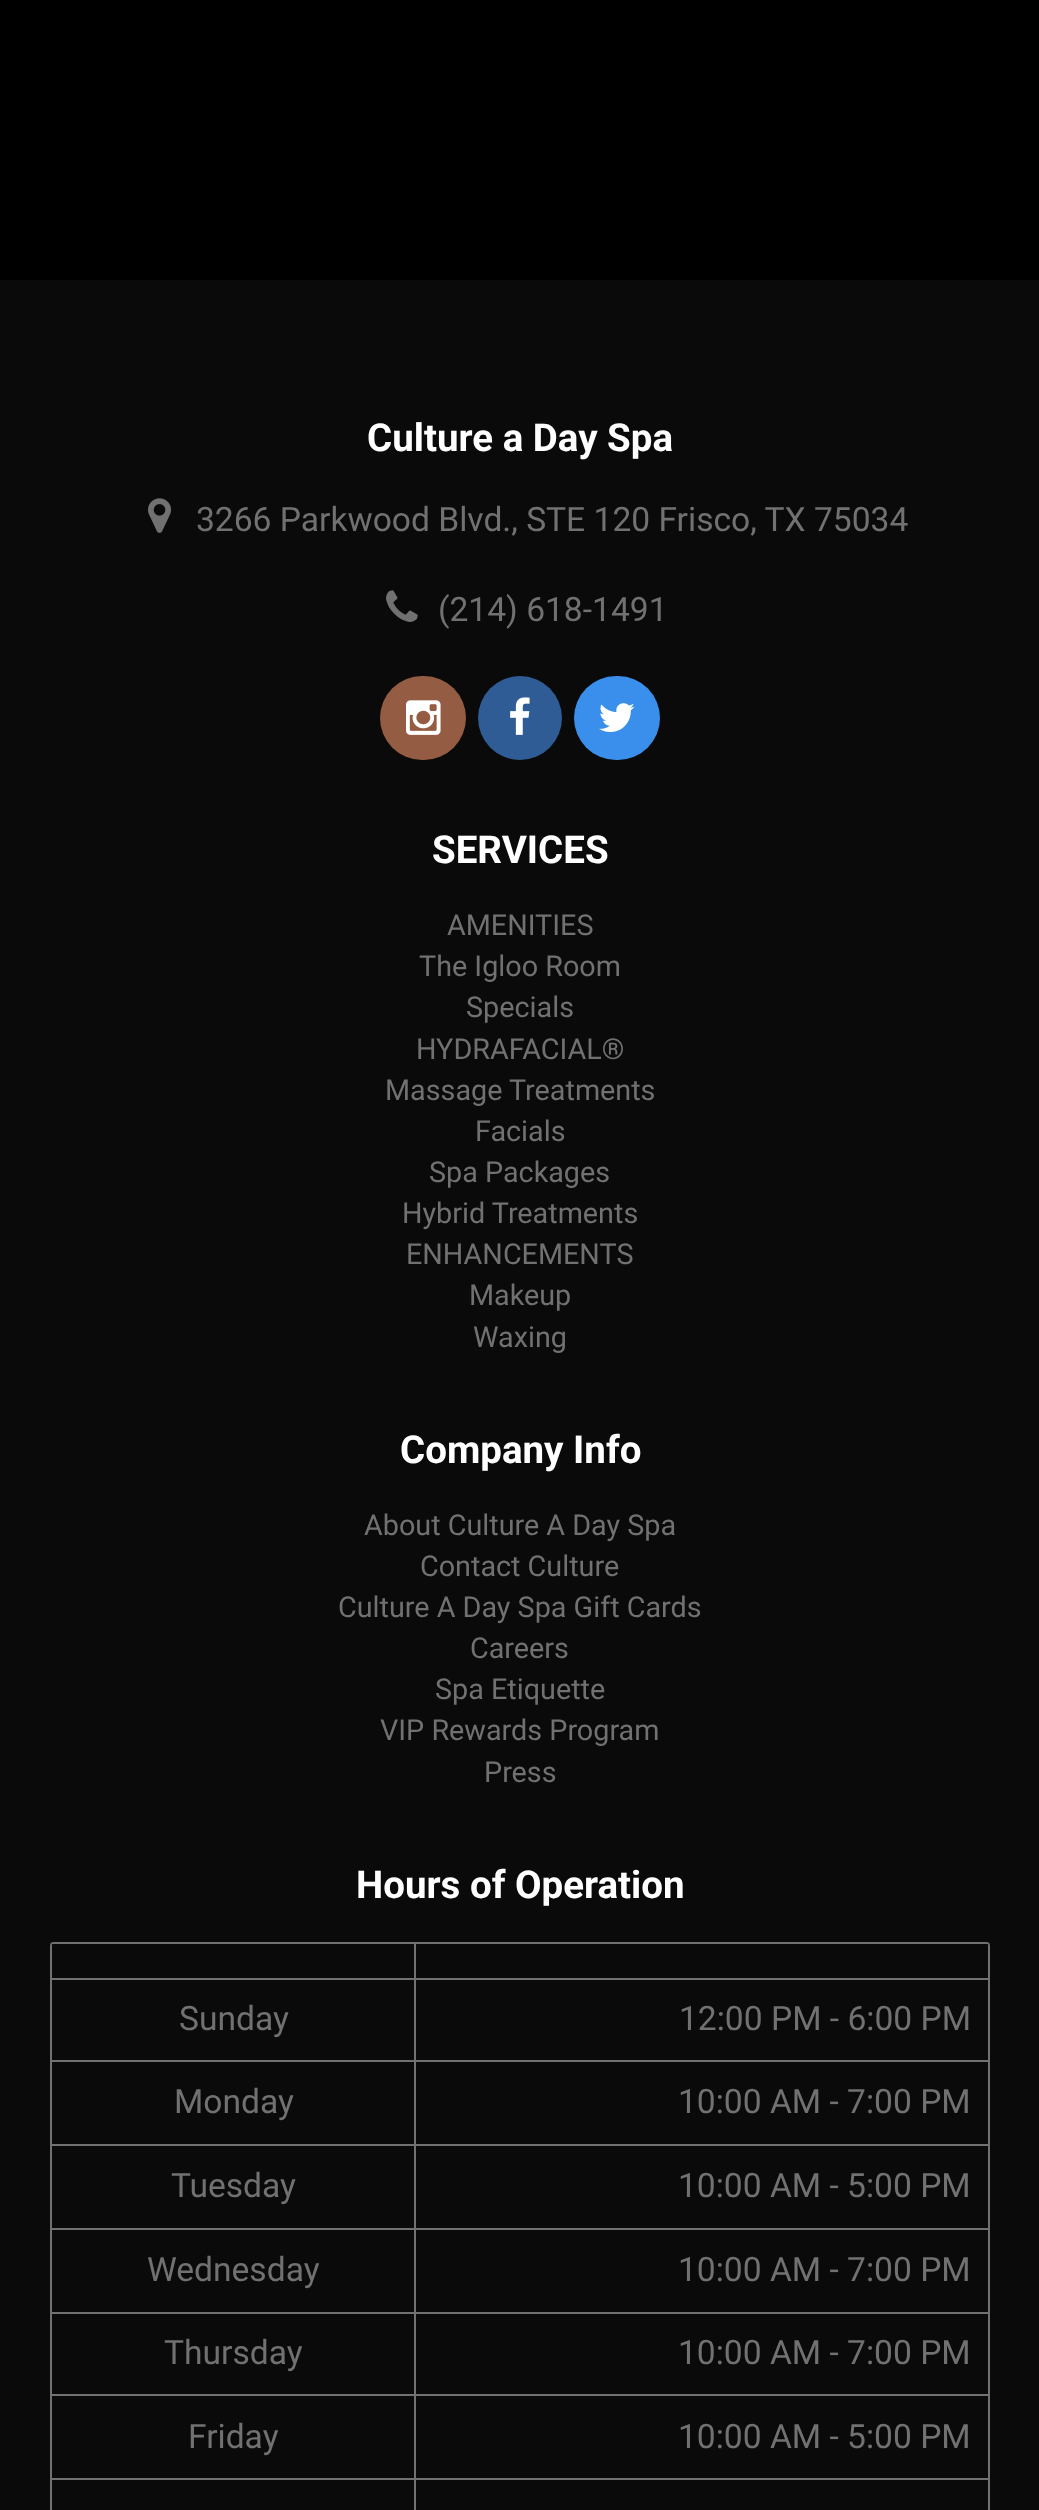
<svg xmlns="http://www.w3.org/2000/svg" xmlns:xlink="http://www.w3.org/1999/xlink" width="1039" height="2510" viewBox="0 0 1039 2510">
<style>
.cls-1{font:bold 38.5px Roboto;fill:#ffffff}
.cls-2{font:33.6px Roboto;fill:#717171}
.cls-3{font:28.75px Roboto;fill:#717171}
</style>
<defs>
<clipPath id="clip1"><rect x="50" y="1942" width="940" height="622" rx="4"/></clipPath>
</defs>
<rect width="100%" height="100%" fill="#000000"/>
<rect fill="#0a0a0a" x="0" y="280" width="1039" height="2230"/>
<image xlink:href="image0.png" x="148" y="498" width="23" height="35"/>
<image xlink:href="image1.png" x="386" y="590" width="32" height="32"/>
<rect fill="#955c44" x="380" y="676" width="86" height="84" rx="42"/>
<image xlink:href="image2.png" x="406" y="700" width="35" height="35"/>
<circle fill="#2f5c95" cx="520" cy="718" r="42"/>
<image xlink:href="image3.png" x="510" y="697" width="20" height="38"/>
<rect fill="#398feb" x="574" y="676" width="86" height="84" rx="42"/>
<image xlink:href="image4.png" x="599" y="703" width="36" height="29"/>
<g clip-path="url(#clip1)">
<rect fill="#717171" x="414" y="1942" width="576" height="2"/>
</g>
<rect fill="#717171" x="414" y="1978" width="576" height="2"/>
<rect fill="#717171" x="414" y="2060" width="576" height="2"/>
<rect fill="#717171" x="414" y="2144" width="576" height="2"/>
<rect fill="#717171" x="414" y="2228" width="576" height="2"/>
<rect fill="#717171" x="414" y="2312" width="576" height="2"/>
<rect fill="#717171" x="414" y="2394" width="576" height="2"/>
<rect fill="#717171" x="414" y="2478" width="576" height="2"/>
<rect fill="#717171" x="414" y="2478" width="2" height="32"/>
<rect fill="#717171" x="50" y="2478" width="366" height="2"/>
<rect fill="#717171" x="414" y="2394" width="2" height="86"/>
<rect fill="#717171" x="50" y="2394" width="366" height="2"/>
<rect fill="#717171" x="414" y="2312" width="2" height="84"/>
<rect fill="#717171" x="50" y="2312" width="366" height="2"/>
<rect fill="#717171" x="414" y="2228" width="2" height="86"/>
<rect fill="#717171" x="50" y="2228" width="366" height="2"/>
<rect fill="#717171" x="414" y="2144" width="2" height="86"/>
<rect fill="#717171" x="50" y="2144" width="366" height="2"/>
<rect fill="#717171" x="414" y="2060" width="2" height="86"/>
<rect fill="#717171" x="50" y="2060" width="366" height="2"/>
<rect fill="#717171" x="414" y="1978" width="2" height="84"/>
<rect fill="#717171" x="50" y="1978" width="366" height="2"/>
<rect fill="#717171" x="414" y="1942" width="2" height="38"/>
<g clip-path="url(#clip1)">
<rect fill="#717171" x="50" y="1942" width="366" height="2"/>
</g>
<rect fill="#717171" x="50" y="2478" width="2" height="32"/>
<rect fill="#717171" x="50" y="2394" width="2" height="86"/>
<rect fill="#717171" x="50" y="2312" width="2" height="84"/>
<rect fill="#717171" x="50" y="2228" width="2" height="86"/>
<rect fill="#717171" x="50" y="2144" width="2" height="86"/>
<rect fill="#717171" x="50" y="2060" width="2" height="86"/>
<rect fill="#717171" x="50" y="1978" width="2" height="84"/>
<g clip-path="url(#clip1)">
<rect fill="#717171" x="50" y="1942" width="2" height="38"/>
</g>
<rect fill="#717171" x="988" y="2478" width="2" height="32"/>
<rect fill="#717171" x="988" y="2394" width="2" height="86"/>
<rect fill="#717171" x="988" y="2312" width="2" height="84"/>
<rect fill="#717171" x="988" y="2228" width="2" height="86"/>
<rect fill="#717171" x="988" y="2144" width="2" height="86"/>
<rect fill="#717171" x="988" y="2060" width="2" height="86"/>
<rect fill="#717171" x="988" y="1978" width="2" height="84"/>
<g clip-path="url(#clip1)">
<rect fill="#717171" x="988" y="1942" width="2" height="38"/>
</g>
<text class="cls-1" x="367" y="451">Culture a Day Spa</text>
<text class="cls-2" x="196" y="531">3266 Parkwood Blvd., STE 120 Frisco, TX 75034</text>
<text class="cls-2" x="438" y="621">(214) 618-1491</text>
<text class="cls-1" x="432" y="863">SERVICES</text>
<text class="cls-3" x="447" y="935">AMENITIES</text>
<text class="cls-3" x="419" y="976">The Igloo Room</text>
<text class="cls-3" x="466" y="1017">Specials</text>
<text class="cls-3" x="416" y="1059">HYDRAFACIAL®</text>
<text class="cls-3" x="385" y="1100">Massage Treatments</text>
<text class="cls-3" x="475" y="1141">Facials</text>
<text class="cls-3" x="429" y="1182">Spa Packages</text>
<text class="cls-3" x="402" y="1223">Hybrid Treatments</text>
<text class="cls-3" x="406" y="1264">ENHANCEMENTS</text>
<text class="cls-3" x="469" y="1305">Makeup</text>
<text class="cls-3" x="473" y="1347">Waxing</text>
<text class="cls-1" x="400" y="1463">Company Info</text>
<text class="cls-3" x="364" y="1535">About Culture A Day Spa</text>
<text class="cls-3" x="420" y="1576">Contact Culture</text>
<text class="cls-3" x="338" y="1617">Culture A Day Spa Gift Cards</text>
<text class="cls-3" x="470" y="1658">Careers</text>
<text class="cls-3" x="435" y="1699">Spa Etiquette</text>
<text class="cls-3" x="380" y="1740">VIP Rewards Program</text>
<text class="cls-3" x="484" y="1782">Press</text>
<text class="cls-1" x="356" y="1898">Hours of Operation</text>
<text class="cls-2" x="179" y="2030">Sunday</text>
<text class="cls-2" x="679" y="2030">12:00 PM - 6:00 PM</text>
<text class="cls-2" x="174" y="2113">Monday</text>
<text class="cls-2" x="678" y="2113">10:00 AM - 7:00 PM</text>
<text class="cls-2" x="171" y="2197">Tuesday</text>
<text class="cls-2" x="678" y="2197">10:00 AM - 5:00 PM</text>
<text class="cls-2" x="147" y="2281">Wednesday</text>
<text class="cls-2" x="678" y="2281">10:00 AM - 7:00 PM</text>
<text class="cls-2" x="164" y="2364">Thursday</text>
<text class="cls-2" x="678" y="2364">10:00 AM - 7:00 PM</text>
<text class="cls-2" x="188" y="2448">Friday</text>
<text class="cls-2" x="678" y="2448">10:00 AM - 5:00 PM</text>
</svg>
